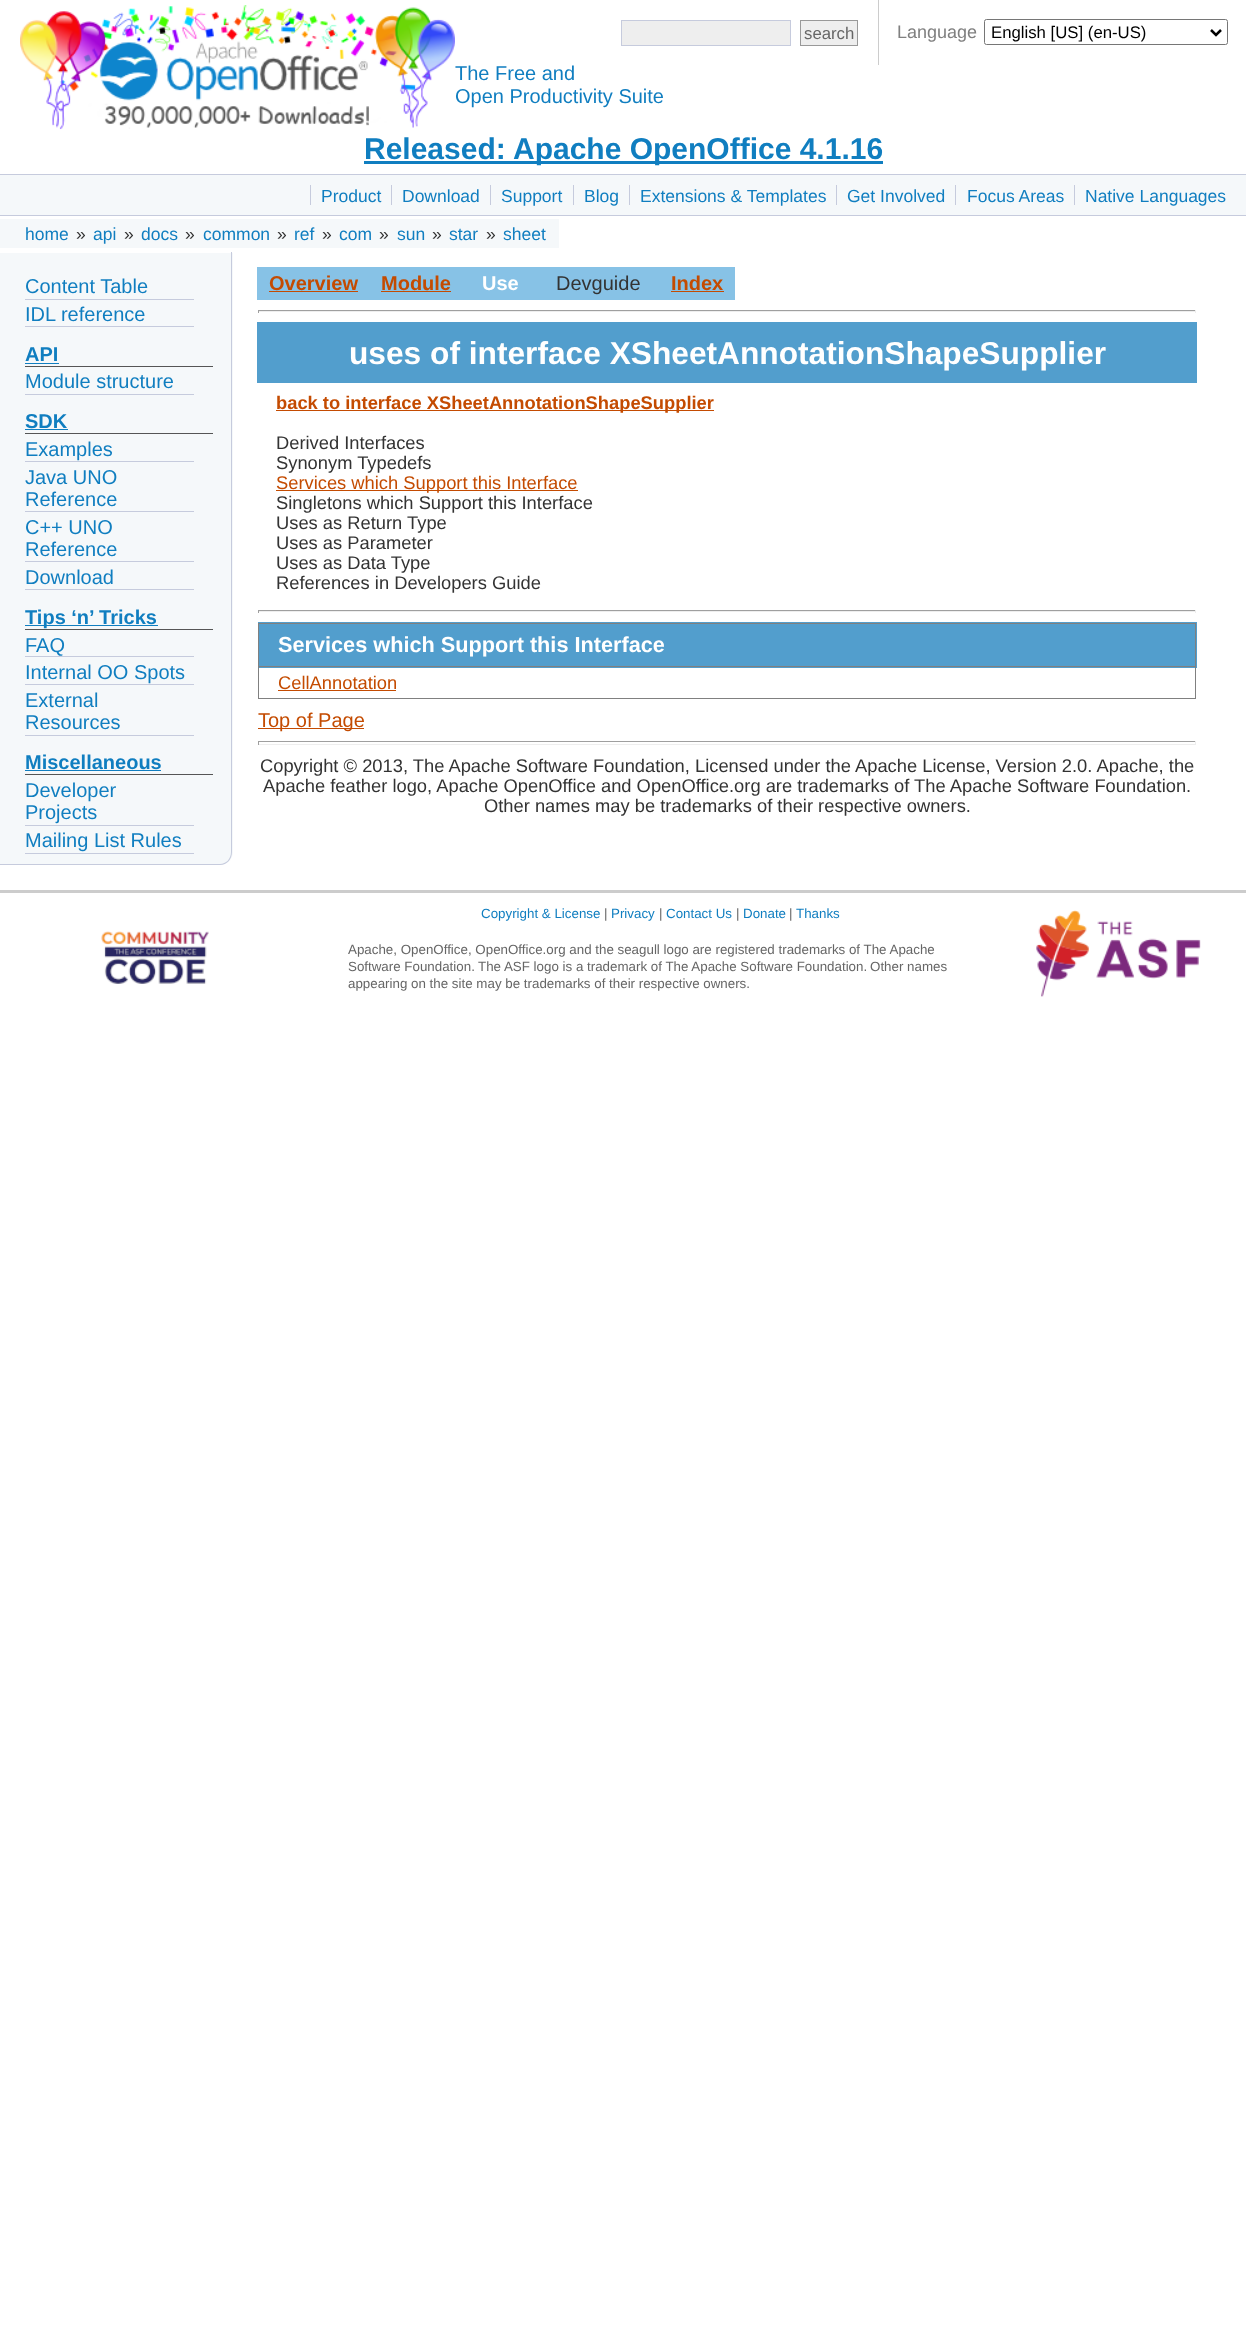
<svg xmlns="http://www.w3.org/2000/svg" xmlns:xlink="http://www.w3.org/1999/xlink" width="1246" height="2338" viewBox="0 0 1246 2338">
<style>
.cls-1{font:16.75px Liberation Sans;fill:#666666}
.cls-2{font:18px Liberation Sans;fill:#808080}
.cls-3{font:16.75px Liberation Sans;fill:#000000}
.cls-4{font:20px Liberation Sans;fill:#107ec0}
.cls-5{font:bold 30px Liberation Sans;fill:#107ec0}
.cls-6{font:17.5px Liberation Sans;fill:#107ec0}
.cls-7{font:17.5px Liberation Sans;fill:#333333}
.cls-8{font:bold 20px Liberation Sans;fill:#107ec0}
.cls-9{font:bold 20px Liberation Sans;fill:#c44b01}
.cls-10{font:bold 20px Liberation Sans;fill:#ffffff}
.cls-11{font:20px Liberation Sans;fill:#333333}
.cls-12{font:bold 31.7px Liberation Sans;fill:#ffffff}
.cls-13{font:bold 18.33px Liberation Sans;fill:#c44b01}
.cls-14{font:18.33px Liberation Sans;fill:#333333}
.cls-15{font:18.33px Liberation Sans;fill:#c44b01}
.cls-16{font:bold 21.7px Liberation Sans;fill:#ffffff}
.cls-17{font:20px Liberation Sans;fill:#c44b01}
.cls-18{font:13.35px Liberation Sans;fill:#107ec0}
.cls-19{font:13.35px Liberation Sans;fill:#666666}
</style>
<rect width="100%" height="100%" fill="#ffffff"/>
<image xlink:href="image0.png" x="20" y="5" width="435" height="125"/>
<rect fill="#eeeeee" stroke="#c6cbdd" x="621.5" y="20.5" width="169" height="25"/>
<rect fill="#eeeeee" stroke="#999999" x="800.5" y="20.5" width="57" height="25"/>
<rect fill="#cccccc" x="878" y="0" width="1" height="65"/>
<rect fill="none" stroke="#767676" x="984.5" y="19.5" width="243" height="25" rx="2"/>
<path fill="none" stroke="#000000" stroke-width="2.5" d="M1211 30L1216 35L1221 30"/>
<rect fill="#107ec0" x="364" y="161" width="519" height="3"/>
<rect fill="#f5f8fa" x="0" y="175" width="1246" height="40"/>
<rect fill="#c6cbdd" x="0" y="174" width="1246" height="1"/>
<rect fill="#c6cbdd" x="0" y="215" width="1246" height="1"/>
<rect fill="#c6cbdd" x="310" y="185" width="1" height="20"/>
<rect fill="#c6cbdd" x="391" y="185" width="1" height="20"/>
<rect fill="#c6cbdd" x="490" y="185" width="1" height="20"/>
<rect fill="#c6cbdd" x="573" y="185" width="1" height="20"/>
<rect fill="#c6cbdd" x="629" y="185" width="1" height="20"/>
<rect fill="#c6cbdd" x="836" y="185" width="1" height="20"/>
<rect fill="#c6cbdd" x="955" y="185" width="1" height="20"/>
<rect fill="#c6cbdd" x="1074" y="185" width="1" height="20"/>
<rect fill="#f5f8fa" x="0" y="219" width="559" height="29"/>
<path fill="#f5f8fa" d="M0 253H233V852C233 859 227 865 220 865H0Z"/>
<path fill="#c6cbdd" fill-rule="evenodd" d="M0 252H232V852C232 859 227 865 220 865H0ZM0 252H231V852C231 859 226 864 220 864H0Z"/>
<rect fill="#c6cbdd" x="25" y="299" width="169" height="1"/>
<rect fill="#c6cbdd" x="25" y="326" width="169" height="1"/>
<rect fill="#555555" x="25" y="366" width="188" height="1"/>
<rect fill="#107ec0" x="25" y="363" width="34" height="1"/>
<rect fill="#c6cbdd" x="25" y="394" width="169" height="1"/>
<rect fill="#555555" x="25" y="433" width="188" height="1"/>
<rect fill="#107ec0" x="25" y="429" width="43" height="1"/>
<rect fill="#c6cbdd" x="25" y="461" width="169" height="1"/>
<rect fill="#c6cbdd" x="25" y="511" width="169" height="1"/>
<rect fill="#c6cbdd" x="25" y="561" width="169" height="1"/>
<rect fill="#c6cbdd" x="25" y="589" width="169" height="1"/>
<rect fill="#555555" x="25" y="629" width="188" height="1"/>
<rect fill="#107ec0" x="25" y="625" width="133" height="1"/>
<rect fill="#c6cbdd" x="25" y="656" width="169" height="1"/>
<rect fill="#c6cbdd" x="25" y="684" width="169" height="1"/>
<rect fill="#c6cbdd" x="25" y="735" width="169" height="1"/>
<rect fill="#555555" x="25" y="774" width="188" height="1"/>
<rect fill="#107ec0" x="25" y="770" width="136" height="1"/>
<rect fill="#c6cbdd" x="25" y="825" width="169" height="1"/>
<rect fill="#c6cbdd" x="25" y="853" width="169" height="1"/>
<rect fill="#87c2e6" x="257" y="267" width="478" height="33"/>
<rect fill="#c44b01" x="269" y="291" width="89" height="1"/>
<rect fill="#c44b01" x="381" y="291" width="70" height="1"/>
<rect fill="#c44b01" x="671" y="291" width="53" height="1"/>
<rect fill="#9f9f9f" x="258" y="310" width="938" height="1"/>
<rect fill="#eeeeee" x="1195" y="310" width="1" height="3"/>
<rect fill="#eeeeee" x="258" y="311" width="938" height="1"/>
<rect fill="#9f9f9f" x="258" y="310" width="1" height="3"/>
<rect fill="#529ecd" x="257" y="322" width="940" height="61"/>
<rect fill="#c44b01" x="276" y="410" width="438" height="1"/>
<rect fill="#c44b01" x="276" y="490" width="302" height="1"/>
<rect fill="#9f9f9f" x="258" y="610" width="938" height="1"/>
<rect fill="#eeeeee" x="1195" y="610" width="1" height="3"/>
<rect fill="#eeeeee" x="258" y="611" width="938" height="1"/>
<rect fill="#9f9f9f" x="258" y="610" width="1" height="3"/>
<rect fill="#529ecd" x="258" y="622" width="939" height="46"/>
<rect fill="#808080" x="258" y="623" width="938" height="1"/>
<rect fill="#808080" x="1195" y="623" width="1" height="76"/>
<rect fill="#808080" x="258" y="698" width="938" height="1"/>
<rect fill="#808080" x="258" y="623" width="1" height="76"/>
<rect fill="#808080" x="258" y="666" width="938" height="1"/>
<rect fill="#c44b01" x="278" y="690" width="118" height="1"/>
<rect fill="#c44b01" x="258" y="728" width="106" height="1"/>
<rect fill="#9f9f9f" x="258" y="741" width="938" height="1"/>
<rect fill="#eeeeee" x="1195" y="741" width="1" height="4"/>
<rect fill="#eeeeee" x="258" y="744" width="938" height="1"/>
<rect fill="#9f9f9f" x="258" y="741" width="1" height="4"/>
<rect fill="#cccccc" x="0" y="890" width="1246" height="3"/>
<image xlink:href="image1.png" x="101" y="931" width="108" height="53"/>
<image xlink:href="image2.png" x="1036" y="910" width="165" height="87"/>
<text class="cls-1" x="804" y="39">search</text>
<text class="cls-2" x="897" y="38">Language</text>
<text class="cls-3" x="991" y="38">English [US] (en-US)</text>
<text class="cls-4"><tspan x="455" y="80">The Free and</tspan><tspan x="455" y="103">Open Productivity Suite</tspan></text>
<text class="cls-5" x="364" y="159">Released: Apache OpenOffice 4.1.16</text>
<text class="cls-6" x="321" y="202">Product</text>
<text class="cls-6" x="402" y="202">Download</text>
<text class="cls-6" x="501" y="202">Support</text>
<text class="cls-6" x="584" y="202">Blog</text>
<text class="cls-6" x="640" y="202">Extensions &amp; Templates</text>
<text class="cls-6" x="847" y="202">Get Involved</text>
<text class="cls-6" x="967" y="202">Focus Areas</text>
<text class="cls-6" x="1085" y="202">Native Languages</text>
<text class="cls-6" x="25" y="240">home</text>
<text class="cls-7" x="76" y="240">»</text>
<text class="cls-6" x="93" y="240">api</text>
<text class="cls-7" x="124" y="240">»</text>
<text class="cls-6" x="141" y="240">docs</text>
<text class="cls-7" x="185" y="240">»</text>
<text class="cls-6" x="203" y="240">common</text>
<text class="cls-7" x="277" y="240">»</text>
<text class="cls-6" x="294" y="240">ref</text>
<text class="cls-7" x="322" y="240">»</text>
<text class="cls-6" x="339" y="240">com</text>
<text class="cls-7" x="379" y="240">»</text>
<text class="cls-6" x="397" y="240">sun</text>
<text class="cls-7" x="432" y="240">»</text>
<text class="cls-6" x="449" y="240">star</text>
<text class="cls-7" x="486" y="240">»</text>
<text class="cls-6" x="503" y="240">sheet</text>
<text class="cls-4"><tspan x="25" y="293">Content Table</tspan><tspan x="25" y="321">IDL reference</tspan></text>
<text class="cls-8" x="25" y="361">API</text>
<text class="cls-4" x="25" y="388">Module structure</text>
<text class="cls-8" x="25" y="428">SDK</text>
<text class="cls-4"><tspan x="25" y="456">Examples</tspan><tspan x="25" y="484">Java UNO</tspan><tspan x="25" y="506">Reference</tspan><tspan x="25" y="534">C++ UNO</tspan><tspan x="25" y="556">Reference</tspan><tspan x="25" y="584">Download</tspan></text>
<text class="cls-8" x="25" y="624">Tips ‘n’ Tricks</text>
<text class="cls-4"><tspan x="25" y="652">FAQ</tspan><tspan x="25" y="679">Internal OO Spots</tspan><tspan x="25" y="707">External</tspan><tspan x="25" y="729">Resources</tspan></text>
<text class="cls-8" x="25" y="769">Miscellaneous</text>
<text class="cls-4"><tspan x="25" y="797">Developer</tspan><tspan x="25" y="819">Projects</tspan><tspan x="25" y="847">Mailing List Rules</tspan></text>
<text class="cls-9" x="269" y="290">Overview</text>
<text class="cls-9" x="381" y="290">Module</text>
<text class="cls-10" x="482" y="290">Use</text>
<text class="cls-11" x="556" y="290">Devguide</text>
<text class="cls-9" x="671" y="290">Index</text>
<text class="cls-12" x="349" y="364">uses of interface XSheetAnnotationShapeSupplier</text>
<text class="cls-13" x="276" y="409">back to interface XSheetAnnotationShapeSupplier</text>
<text class="cls-14"><tspan x="276" y="449">Derived Interfaces</tspan><tspan x="276" y="469">Synonym Typedefs</tspan></text>
<text class="cls-15" x="276" y="489">Services which Support this Interface</text>
<text class="cls-14"><tspan x="276" y="509">Singletons which Support this Interface</tspan><tspan x="276" y="529">Uses as Return Type</tspan><tspan x="276" y="549">Uses as Parameter</tspan><tspan x="276" y="569">Uses as Data Type</tspan><tspan x="276" y="589">References in Developers Guide</tspan></text>
<text class="cls-16" x="278" y="652">Services which Support this Interface</text>
<text class="cls-15" x="278" y="689">CellAnnotation</text>
<text class="cls-17" x="258" y="727">Top of Page</text>
<text class="cls-14" x="260" y="772">Copyright © 2013, The Apache Software Foundation, Licensed under the Apache License, Version 2.0. Apache, the</text>
<text class="cls-14" x="263" y="792">Apache feather logo, Apache OpenOffice and OpenOffice.org are trademarks of The Apache Software Foundation.</text>
<text class="cls-14" x="484" y="812">Other names may be trademarks of their respective owners.</text>
<text class="cls-18" x="481" y="918">Copyright &amp; License</text>
<text class="cls-19" x="604" y="918">|</text>
<text class="cls-18" x="611" y="918">Privacy</text>
<text class="cls-19" x="659" y="918">|</text>
<text class="cls-18" x="666" y="918">Contact Us</text>
<text class="cls-19" x="736" y="918">|</text>
<text class="cls-18" x="743" y="918">Donate</text>
<text class="cls-19" x="789" y="918">|</text>
<text class="cls-18" x="796" y="918">Thanks</text>
<text class="cls-19"><tspan x="348" y="954">Apache, OpenOffice, OpenOffice.org and the seagull logo are registered trademarks of The Apache</tspan><tspan x="348" y="971">Software Foundation.</tspan></text>
<text class="cls-19" x="478" y="971">The ASF logo is a trademark of The Apache Software Foundation.</text>
<text class="cls-19" x="870" y="971">Other names</text>
<text class="cls-19" x="348" y="988">appearing on the site may be trademarks of their respective owners.</text>
</svg>
